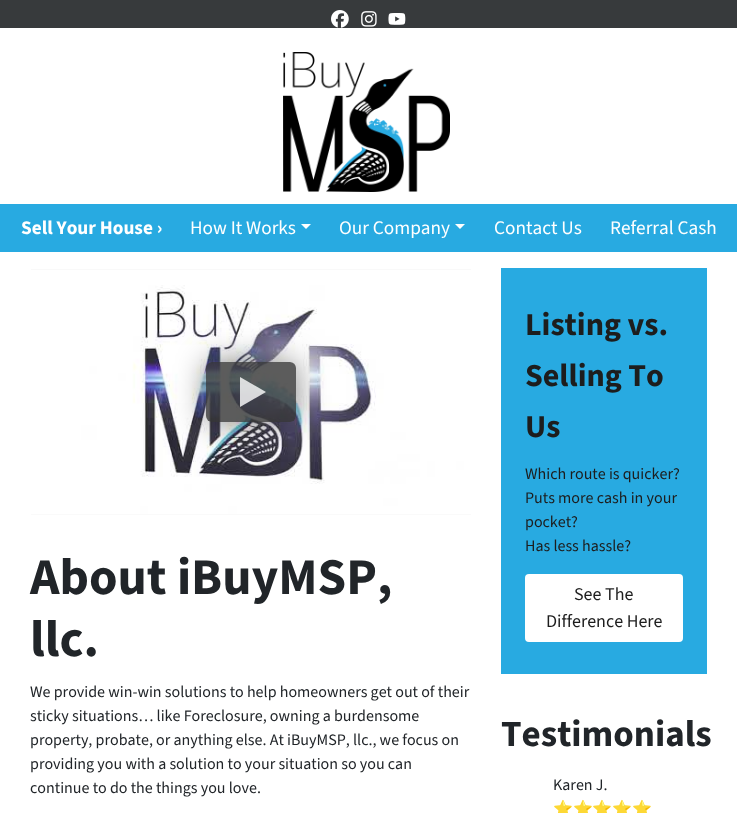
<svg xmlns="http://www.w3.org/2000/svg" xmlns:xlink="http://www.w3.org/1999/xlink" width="737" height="813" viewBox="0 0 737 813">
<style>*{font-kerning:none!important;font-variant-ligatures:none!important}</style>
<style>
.cls-1{font:bold 19.25px 'Source Sans 3';fill:#ffffff}
.cls-2{font:19.25px 'Source Sans 3';fill:#ffffff}
.cls-3{font:bold 51.5px 'Source Sans 3';fill:#212529}
.cls-4{font:16px 'Source Sans 3';fill:#212529}
.cls-5{font:bold 32px 'Source Sans 3';fill:#1d1d1d}
.cls-6{font:16px 'Source Sans 3';fill:#1d1d1d}
.cls-7{font:18px 'Source Sans 3';fill:#1d1d1d}
.cls-8{font:bold 37px 'Source Sans 3';fill:#212529}
.cls-9{font:16px Noto Color Emoji;fill:#212529}
</style>
<defs>
<clipPath id="clip1"><path d="M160 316H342V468H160ZM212 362H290C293.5 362 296 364.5 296 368V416C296 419.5 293.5 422 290 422H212C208.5 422 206 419.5 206 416V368C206 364.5 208.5 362 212 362Z" clip-rule="evenodd"/></clipPath>
</defs>
<rect width="100%" height="100%" fill="#ffffff"/>
<rect fill="#373a3c" x="0" y="0" width="737" height="28"/>
<image xlink:href="image0.png" x="331" y="10" width="18" height="18"/>
<image xlink:href="image1.png" x="361" y="11" width="16" height="16"/>
<image xlink:href="image2.png" x="388" y="13" width="18" height="12"/>
<image xlink:href="image3.png" x="283" y="52" width="167" height="140"/>
<rect fill="#28aae1" x="0" y="204" width="737" height="48"/>
<path fill="#ffffff" d="M301 224H311L306 229Z"/>
<path fill="#ffffff" d="M455 224H465L460 229Z"/>
<image xlink:href="image4.png" x="31" y="269" width="440" height="246"/>
<g clip-path="url(#clip1)">
<rect fill="#000000" fill-opacity="0.48" filter="blur(15px)" x="206" y="362" width="90" height="60" rx="6"/>
</g>
<rect fill="#333333" fill-opacity="0.8" x="206" y="362" width="90" height="60" rx="6"/>
<path fill="#ffffff" fill-opacity="0.8" d="M240 407V377L266 392Z"/>
<rect fill="#28aae1" x="501" y="268" width="206" height="406"/>
<rect fill="#ffffff" x="525" y="574" width="158" height="68" rx="4"/>
<text class="cls-1" x="21" y="234">Sell Your House ›</text>
<text class="cls-2" x="190" y="234">How It Works</text>
<text class="cls-2" x="339" y="234">Our Company</text>
<text class="cls-2" x="494" y="234">Contact Us</text>
<text class="cls-2" x="610" y="234">Referral Cash</text>
<text class="cls-3"><tspan x="30" y="594">About iBuyMSP,</tspan><tspan x="30" y="656">llc.</tspan></text>
<text class="cls-4"><tspan x="30" y="697">We provide win-win solutions to help homeowners get out of their</tspan><tspan x="30" y="721">sticky situations… like Foreclosure, owning a burdensome</tspan><tspan x="30" y="745">property, probate, or anything else. At iBuyMSP,</tspan></text>
<text class="cls-4" x="353" y="745">llc., we focus on</text>
<text class="cls-4"><tspan x="30" y="769">providing you with a solution to your situation so you can</tspan><tspan x="30" y="793">continue to do the things you love.</tspan></text>
<text class="cls-5"><tspan x="525" y="335">Listing vs.</tspan><tspan x="525" y="386">Selling To</tspan><tspan x="525" y="437">Us</tspan></text>
<text class="cls-6"><tspan x="525" y="479">Which route is quicker?</tspan><tspan x="525" y="503">Puts more cash in your</tspan><tspan x="525" y="527">pocket?</tspan><tspan x="525" y="551">Has less hassle?</tspan></text>
<text class="cls-7" x="574" y="600">See The</text>
<text class="cls-7" x="546" y="627">Difference Here</text>
<text class="cls-8" x="501" y="746">Testimonials</text>
<text class="cls-4" x="553" y="790">Karen J.</text>
<text class="cls-9" x="553" y="814">⭐⭐⭐⭐⭐</text>
</svg>
